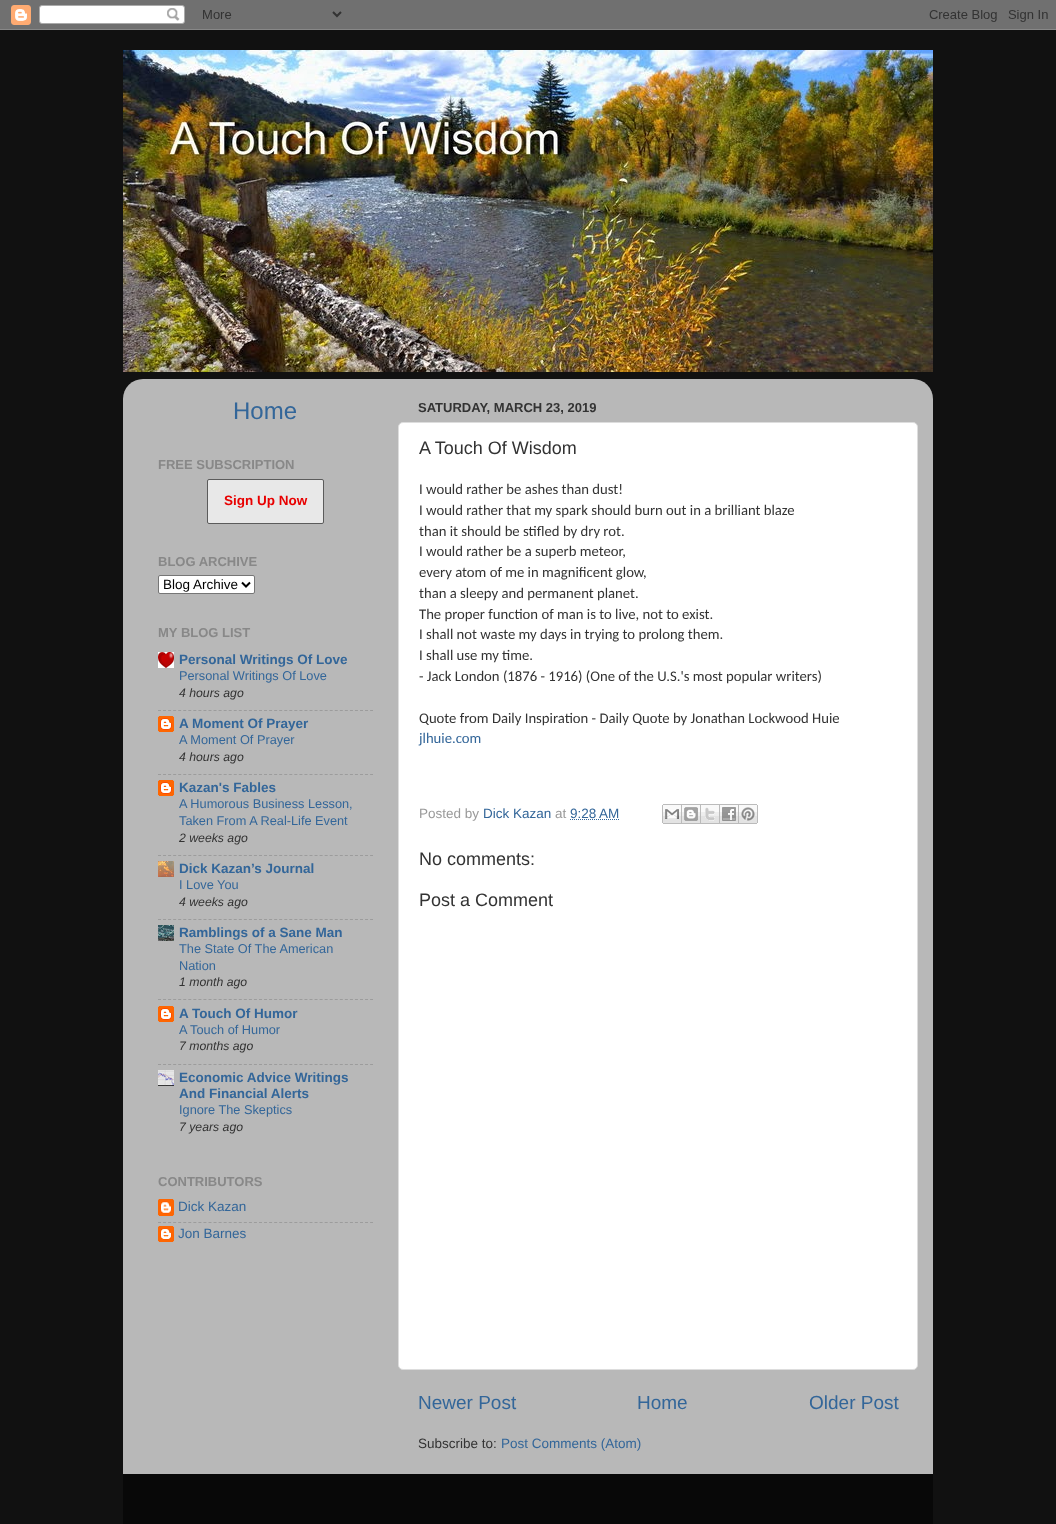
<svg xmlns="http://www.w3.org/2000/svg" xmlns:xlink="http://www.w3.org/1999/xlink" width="1056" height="1524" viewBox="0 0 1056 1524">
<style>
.cls-1{font:24px Liberation Sans;fill:#336699}
.cls-2{font:bold 13px Liberation Sans;fill:#888888}
.cls-3{font:bold 13.5px Liberation Sans;fill:#e80000}
.cls-4{font:13.5px Liberation Sans;fill:#000000}
.cls-5{font:bold 13.5px Liberation Sans;fill:#336699}
.cls-6{font:12.75px Liberation Sans;fill:#336699}
.cls-7{font:italic 12.25px Liberation Sans;fill:#333333}
.cls-8{font:13.5px Liberation Sans;fill:#336699}
.cls-9{font:bold 13px Liberation Sans;fill:#333333}
.cls-10{font:18px Liberation Sans;fill:#333333}
.cls-11{font:14.7px Carlito;fill:#333333}
.cls-12{font:14.7px Carlito;fill:#336699}
.cls-13{font:13.5px Liberation Sans;fill:#999999}
.cls-14{font:19px Liberation Sans;fill:#336699}
.cls-15{font:13.5px Liberation Sans;fill:#333333}
</style>
<rect width="100%" height="100%" fill="#111111"/>
<image xlink:href="image0.png" x="0" y="0" width="1056" height="30"/>
<image xlink:href="image1.png" x="123" y="50" width="810" height="322"/>
<image xlink:href="image2.png" x="123" y="379" width="810" height="1095"/>
<rect fill="#e8e8e8" stroke="#5b5b5b" x="207.5" y="479.5" width="116" height="44" rx="1.5"/>
<rect fill="#ffffff" stroke="#767676" x="158.5" y="575.5" width="96" height="18" rx="1.5"/>
<path fill="none" stroke="#000000" stroke-width="2" d="M242 582.5L246 586.5L250 582.5"/>
<image xlink:href="image3.png" x="158" y="652" width="16" height="16"/>
<path fill="none" stroke="#9c9c9c" stroke-dasharray="3 2.05" d="M158 710.5H373"/>
<image xlink:href="image4.png" x="158" y="716" width="16" height="16"/>
<path fill="none" stroke="#9c9c9c" stroke-dasharray="3 2.05" d="M158 774.5H373"/>
<image xlink:href="image4.png" x="158" y="780" width="16" height="16"/>
<path fill="none" stroke="#9c9c9c" stroke-dasharray="3 2.05" d="M158 855.5H373"/>
<image xlink:href="image5.png" x="158" y="861" width="16" height="16"/>
<path fill="none" stroke="#9c9c9c" stroke-dasharray="3 2.05" d="M158 919.5H373"/>
<image xlink:href="image6.png" x="158" y="925" width="16" height="16"/>
<path fill="none" stroke="#9c9c9c" stroke-dasharray="3 2.05" d="M158 999.5H373"/>
<image xlink:href="image4.png" x="158" y="1006" width="16" height="16"/>
<path fill="none" stroke="#9c9c9c" stroke-dasharray="3 2.05" d="M158 1064.5H373"/>
<image xlink:href="image7.png" x="158" y="1070" width="16" height="16"/>
<image xlink:href="image8.png" x="158" y="1199" width="16" height="17"/>
<path fill="none" stroke="#9c9c9c" stroke-dasharray="3 2.05" d="M158 1222.5H373"/>
<image xlink:href="image9.png" x="158" y="1226" width="16" height="16"/>
<rect fill="#ffffff" stroke="#dddddd" x="398.5" y="422.5" width="519" height="947" rx="4.5"/>
<path fill="none" stroke="#336699" stroke-dasharray="1 1" d="M570 819.5H619"/>
<image xlink:href="image10.png" x="662" y="804" width="20" height="20"/>
<image xlink:href="image11.png" x="682" y="804" width="19" height="20"/>
<image xlink:href="image12.png" x="701" y="804" width="19" height="20"/>
<image xlink:href="image13.png" x="720" y="804" width="19" height="20"/>
<image xlink:href="image14.png" x="739" y="804" width="19" height="20"/>
<rect fill="#080808" x="123" y="1474" width="810" height="50"/>
<text class="cls-1" x="233" y="419">Home</text>
<text class="cls-2" x="158" y="469">FREE SUBSCRIPTION</text>
<text class="cls-3" x="224" y="505">Sign Up Now</text>
<text class="cls-2" x="158" y="566">BLOG ARCHIVE</text>
<text class="cls-4" x="163" y="589">Blog Archive</text>
<text class="cls-2" x="158" y="637">MY BLOG LIST</text>
<text class="cls-5" x="179" y="664">Personal Writings Of Love</text>
<text class="cls-6" x="179" y="680">Personal Writings Of Love</text>
<text class="cls-7" x="179" y="697">4 hours ago</text>
<text class="cls-5" x="179" y="728">A Moment Of Prayer</text>
<text class="cls-6" x="179" y="744">A Moment Of Prayer</text>
<text class="cls-7" x="179" y="761">4 hours ago</text>
<text class="cls-5" x="179" y="792">Kazan's Fables</text>
<text class="cls-6"><tspan x="179" y="808">A Humorous Business Lesson,</tspan><tspan x="179" y="825">Taken From A Real-Life Event</tspan></text>
<text class="cls-7" x="179" y="842">2 weeks ago</text>
<text class="cls-5" x="179" y="873">Dick Kazan’s Journal</text>
<text class="cls-6" x="179" y="889">I Love You</text>
<text class="cls-7" x="179" y="906">4 weeks ago</text>
<text class="cls-5" x="179" y="937">Ramblings of a Sane Man</text>
<text class="cls-6"><tspan x="179" y="953">The State Of The American</tspan><tspan x="179" y="970">Nation</tspan></text>
<text class="cls-7" x="179" y="986">1 month ago</text>
<text class="cls-5" x="179" y="1018">A Touch Of Humor</text>
<text class="cls-6" x="179" y="1034">A Touch of Humor</text>
<text class="cls-7" x="179" y="1050">7 months ago</text>
<text class="cls-5"><tspan x="179" y="1082">Economic Advice Writings</tspan><tspan x="179" y="1098">And Financial Alerts</tspan></text>
<text class="cls-6" x="179" y="1114">Ignore The Skeptics</text>
<text class="cls-7" x="179" y="1131">7 years ago</text>
<text class="cls-2" x="158" y="1186">CONTRIBUTORS</text>
<text class="cls-8" x="178" y="1211">Dick Kazan</text>
<text class="cls-8" x="178" y="1238">Jon Barnes</text>
<text class="cls-9" x="418" y="412">SATURDAY, MARCH 23, 2019</text>
<text class="cls-10" x="419" y="454">A Touch Of Wisdom</text>
<text class="cls-11"><tspan x="419" y="494">I would rather be ashes than dust!</tspan><tspan x="419" y="515">I would rather that my spark should burn out in a brilliant blaze</tspan><tspan x="419" y="536">than it should be stifled by dry rot.</tspan><tspan x="419" y="556">I would rather be a superb meteor,</tspan><tspan x="419" y="577">every atom of me in magnificent glow,</tspan><tspan x="419" y="598">than a sleepy and permanent planet.</tspan><tspan x="419" y="619">The proper function of man is to live, not to exist.</tspan><tspan x="419" y="639">I shall not waste my days in trying to prolong them.</tspan><tspan x="419" y="660">I shall use my time.</tspan><tspan x="419" y="681">- Jack London (1876 - 1916) (One of the U.S.'s most popular writers)</tspan></text>
<text class="cls-11" x="419" y="723">Quote from Daily Inspiration - Daily Quote by Jonathan Lockwood Huie</text>
<text class="cls-12" x="419" y="743">jlhuie.com</text>
<text class="cls-13" x="419" y="818">Posted by</text>
<text class="cls-8" x="483" y="818">Dick Kazan</text>
<text class="cls-13" x="555" y="818">at</text>
<text class="cls-8" x="570" y="818">9:28 AM</text>
<text class="cls-10" x="419" y="865">No comments:</text>
<text class="cls-10" x="419" y="906">Post a Comment</text>
<text class="cls-14" x="418" y="1409">Newer Post</text>
<text class="cls-14" x="637" y="1409">Home</text>
<text class="cls-14" x="809" y="1409">Older Post</text>
<text class="cls-15" x="418" y="1448">Subscribe to:</text>
<text class="cls-8" x="501" y="1448">Post Comments (Atom)</text>
</svg>
